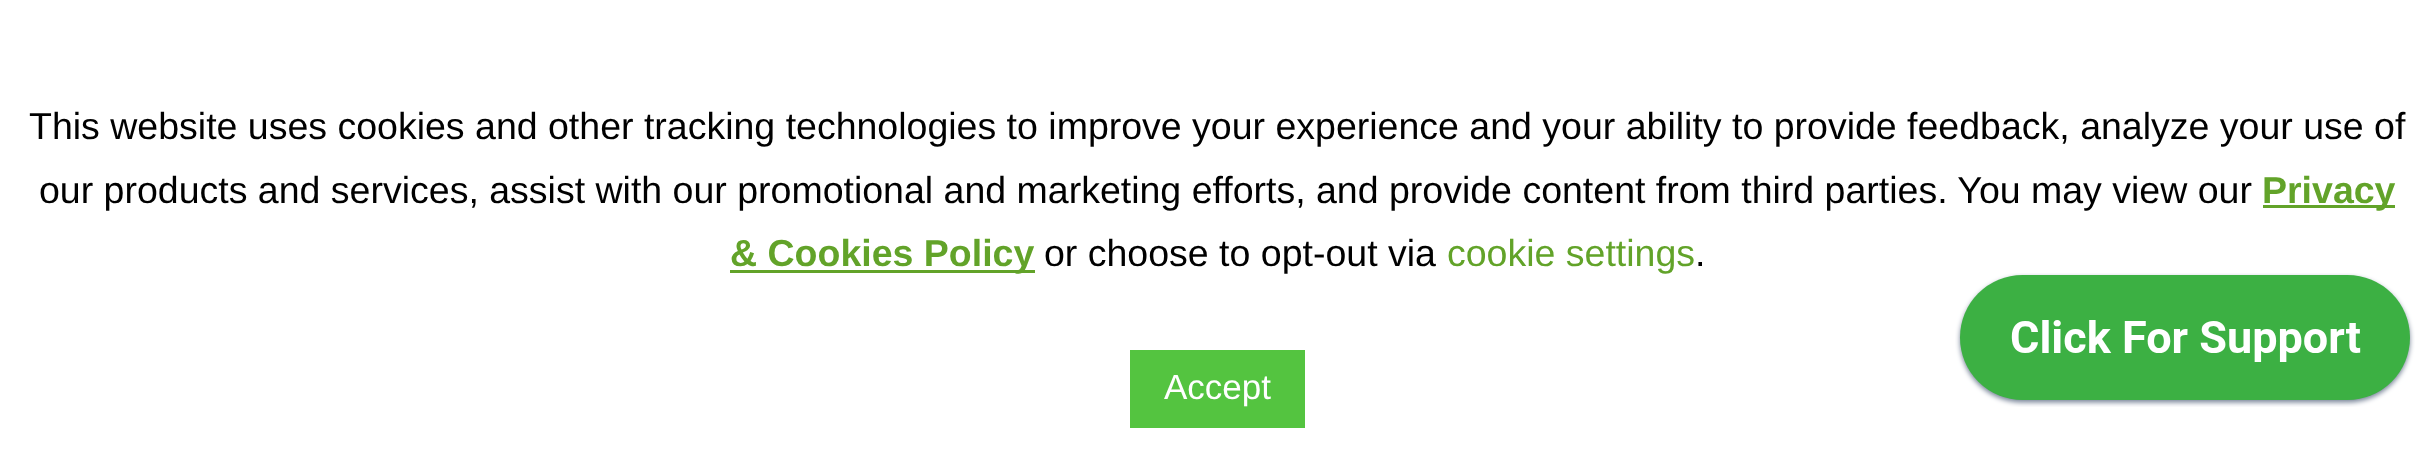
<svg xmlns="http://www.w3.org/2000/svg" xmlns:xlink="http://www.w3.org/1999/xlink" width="2435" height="450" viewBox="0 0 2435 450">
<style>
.cls-1{font:37.5px Liberation Sans;fill:#000000}
.cls-2{font:bold 37.5px Liberation Sans;fill:#62a329}
.cls-3{font:37.5px Liberation Sans;fill:#62a329}
.cls-4{font:35px Liberation Sans;fill:#ffffff}
</style>
<rect width="100%" height="100%" fill="#ffffff"/>
<rect fill="#62a329" x="2263" y="205" width="132" height="3"/>
<rect fill="#62a329" x="730" y="270" width="305" height="3"/>
<rect fill="#54c440" x="1130" y="350" width="175" height="78"/>
<image xlink:href="image0.png" x="1955" y="273" width="460" height="134"/>
<text class="cls-1" x="29" y="139">This website uses cookies and other tracking technologies to improve your experience and your ability to provide feedback, analyze your use of</text>
<text class="cls-1" x="39" y="203">our products and services, assist with our promotional and marketing efforts, and provide content from third parties. You may view our</text>
<text class="cls-2" x="2262" y="203">Privacy</text>
<text class="cls-2" x="730" y="266">&amp; Cookies Policy</text>
<text class="cls-1" x="1044" y="266">or choose to opt-out via</text>
<text class="cls-3" x="1447" y="266">cookie settings</text>
<text class="cls-1" x="1695" y="266">.</text>
<text class="cls-4" x="1164" y="399">Accept</text>
</svg>
